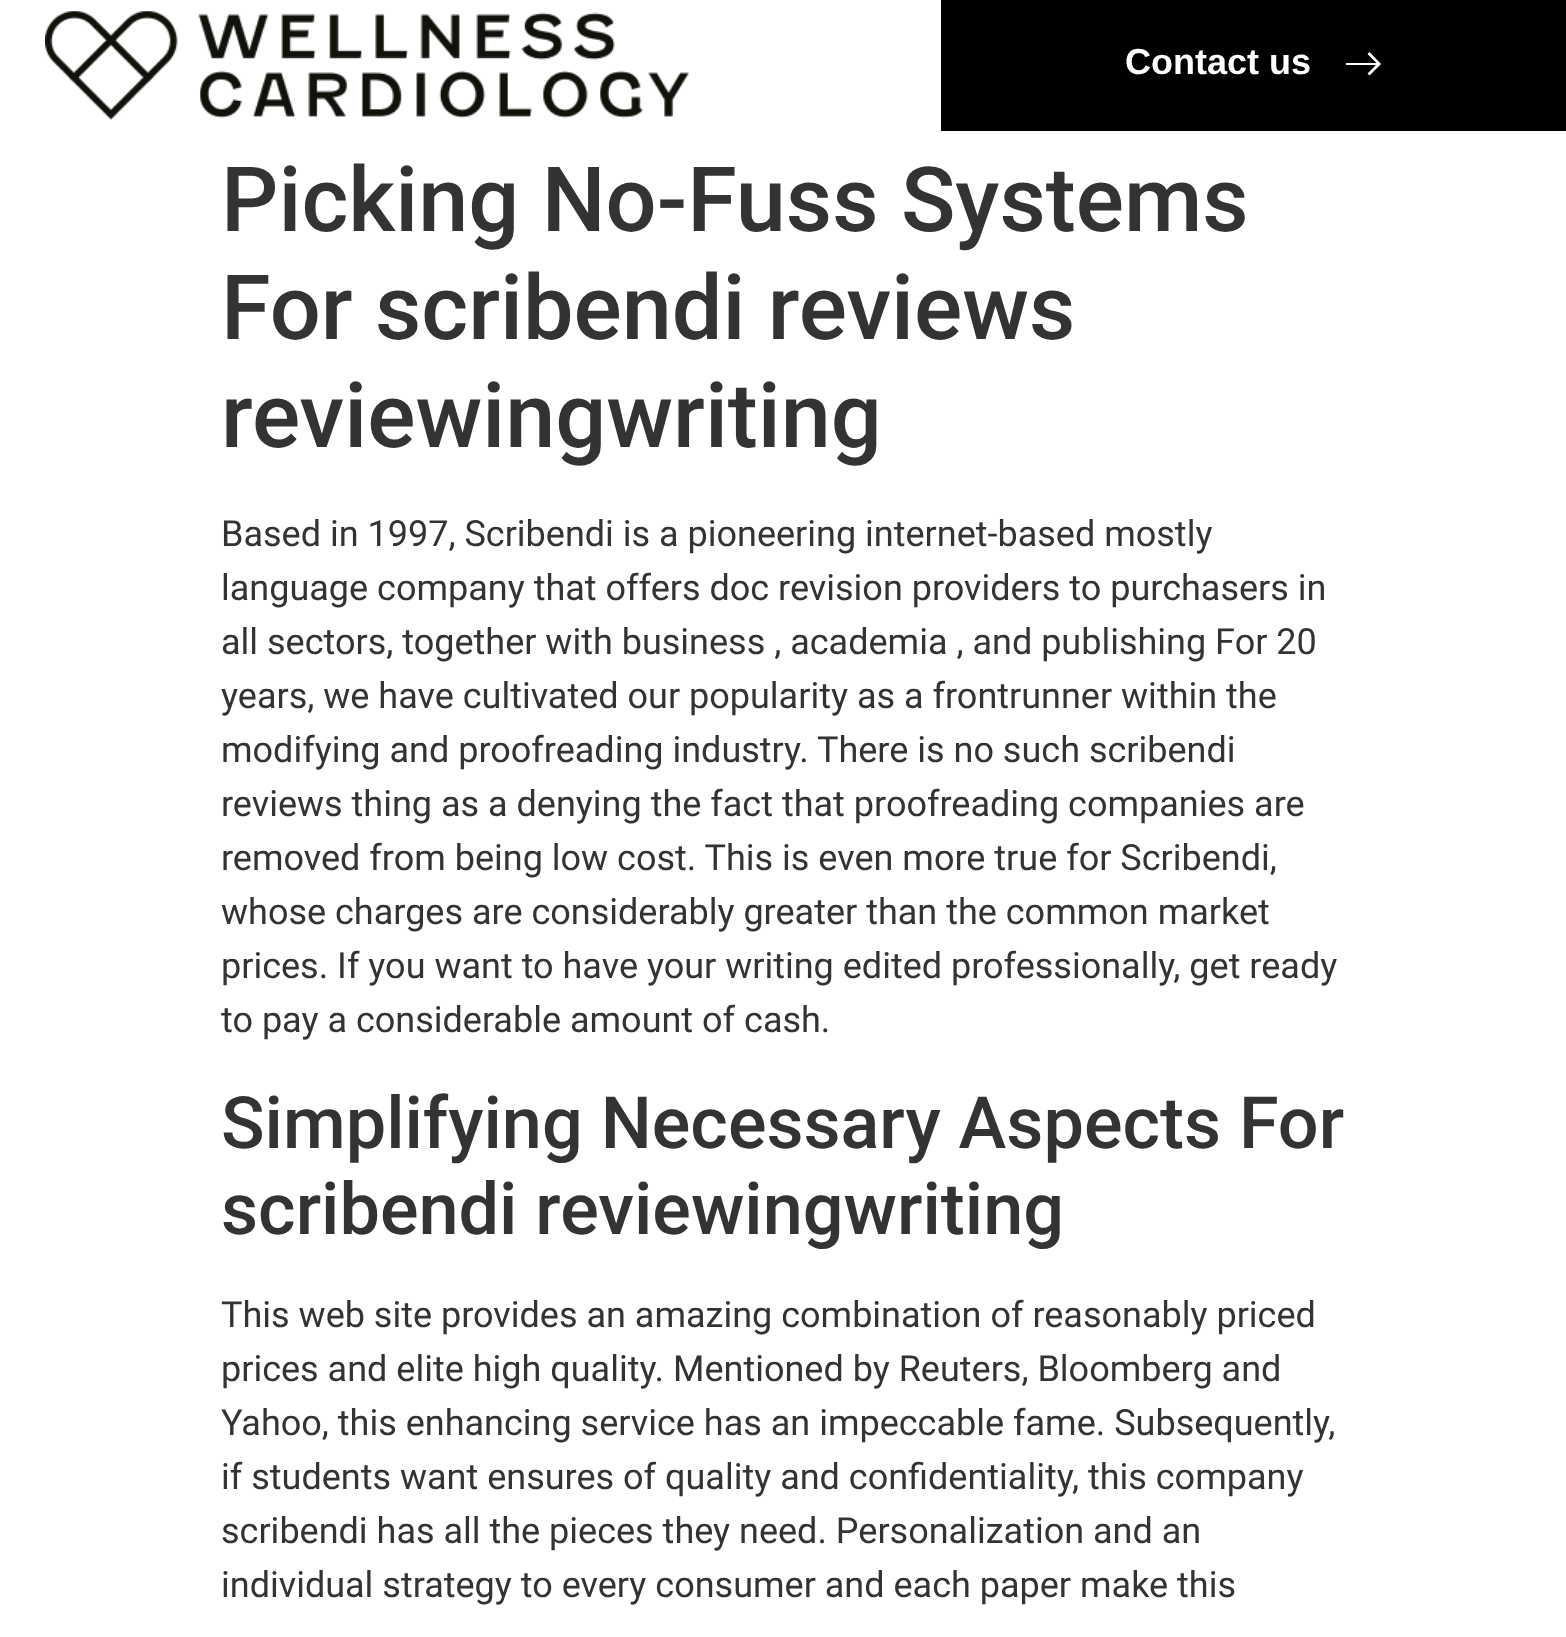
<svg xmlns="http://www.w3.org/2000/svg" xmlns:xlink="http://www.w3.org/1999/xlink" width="1566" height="1637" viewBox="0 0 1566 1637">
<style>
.cls-1{font:bold 36px Liberation Sans;fill:#ffffff}
.cls-2{font:500 90px Roboto;fill:#333333}
.cls-3{font:36px Roboto;fill:#333333}
.cls-4{font:500 72px Roboto;fill:#333333}
</style>
<rect width="100%" height="100%" fill="#ffffff"/>
<image xlink:href="image0.png" x="45" y="11" width="644" height="109"/>
<rect fill="#000000" x="941" y="0" width="625" height="131"/>
<path fill="#ffffff" d="M1369.5 52L1367.5 54L1376.5 63H1346V65H1376L1367.5 73.5L1369.5 75.5L1381 64Z"/>
<text class="cls-1" x="1125" y="74">Contact us</text>
<text class="cls-2"><tspan x="221" y="231">Picking No-Fuss Systems</tspan><tspan x="221" y="339">For scribendi reviews</tspan><tspan x="221" y="447">reviewingwriting</tspan></text>
<text class="cls-3"><tspan x="221" y="546">Based in 1997, Scribendi is a pioneering internet-based mostly</tspan><tspan x="221" y="600">language company that offers doc revision providers to purchasers in</tspan><tspan x="221" y="654">all sectors, together with business , academia , and publishing For 20</tspan><tspan x="221" y="708">years, we have cultivated our popularity as a frontrunner within the</tspan><tspan x="221" y="762">modifying and proofreading industry. There is no such scribendi</tspan><tspan x="221" y="816">reviews thing as a denying the fact that proofreading companies are</tspan><tspan x="221" y="870">removed from being low cost. This is even more true for Scribendi,</tspan><tspan x="221" y="924">whose charges are considerably greater than the common market</tspan><tspan x="221" y="978">prices. If you want to have your writing edited professionally, get ready</tspan><tspan x="221" y="1032">to pay a considerable amount of cash.</tspan></text>
<text class="cls-4"><tspan x="221" y="1148">Simplifying Necessary Aspects For</tspan><tspan x="221" y="1234">scribendi reviewingwriting</tspan></text>
<text class="cls-3"><tspan x="221" y="1327">This web site provides an amazing combination of reasonably priced</tspan><tspan x="221" y="1381">prices and elite high quality. Mentioned by Reuters, Bloomberg and</tspan><tspan x="221" y="1435">Yahoo, this enhancing service has an impeccable fame. Subsequently,</tspan><tspan x="221" y="1489">if students want ensures of quality and confidentiality, this company</tspan><tspan x="221" y="1543">scribendi has all the pieces they need. Personalization and an</tspan><tspan x="221" y="1597">individual strategy to every consumer and each paper make this</tspan></text>
</svg>
